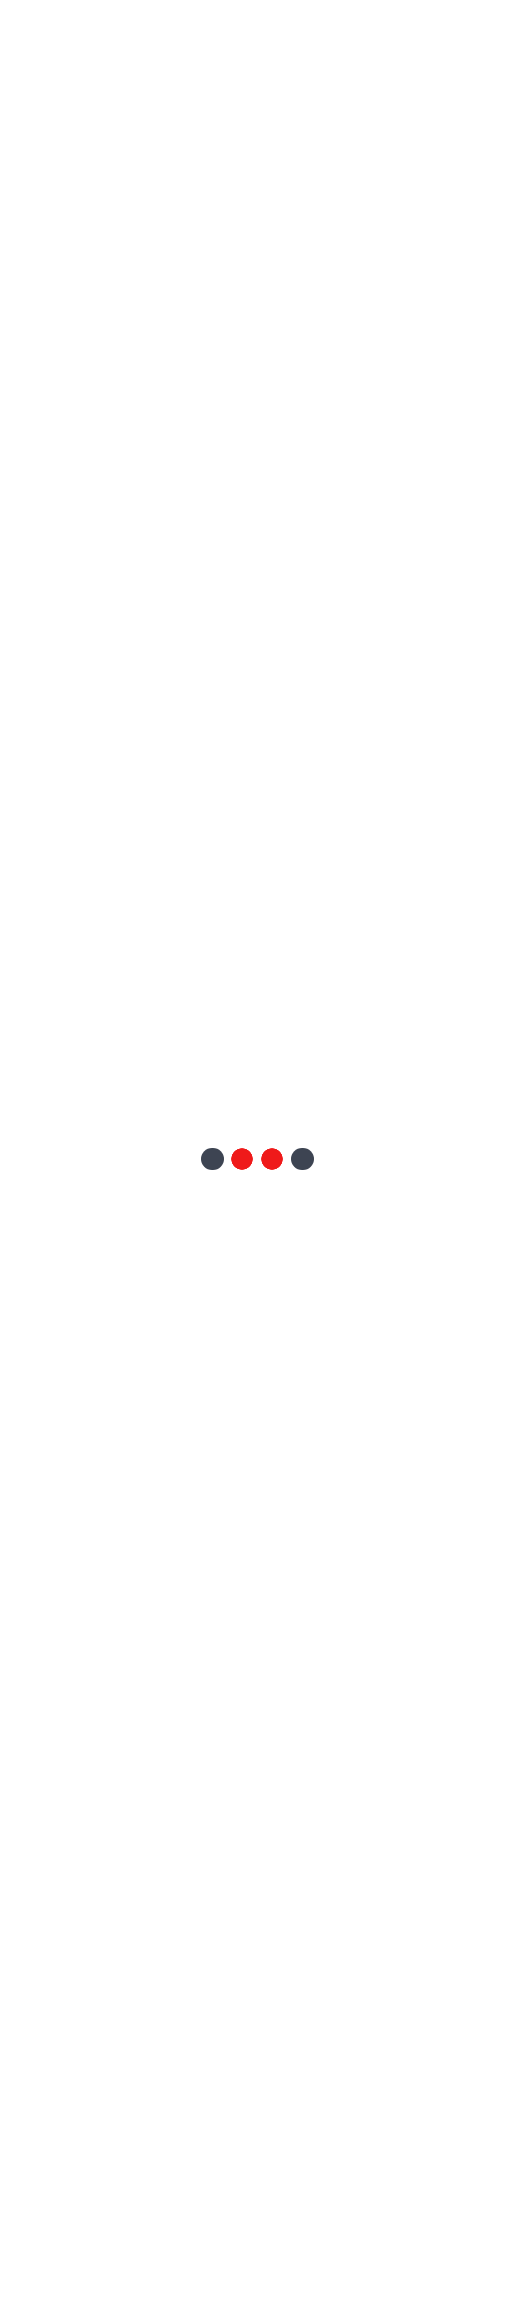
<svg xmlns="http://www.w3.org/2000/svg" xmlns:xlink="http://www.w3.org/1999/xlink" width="514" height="2316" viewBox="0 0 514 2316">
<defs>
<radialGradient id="g1" gradientUnits="userSpaceOnUse" cx="272" cy="1159" r="11"><stop offset="0.95" stop-color="#ef1a1a"/><stop offset="1" stop-color="#ffffff"/></radialGradient>
<radialGradient id="g2" gradientUnits="userSpaceOnUse" cx="242" cy="1159" r="11"><stop offset="0.95" stop-color="#ef1a1a"/><stop offset="1" stop-color="#ffffff"/></radialGradient>
</defs>
<rect width="100%" height="100%" fill="#ffffff"/>
<rect fill="url(#g1)" x="261" y="1148" width="22" height="22"/>
<rect fill="url(#g2)" x="231" y="1148" width="22" height="22"/>
<rect fill="#3d4452" x="201" y="1148" width="23" height="22" rx="11"/>
<rect fill="#3d4452" x="291" y="1148" width="23" height="22" rx="11"/>
</svg>
